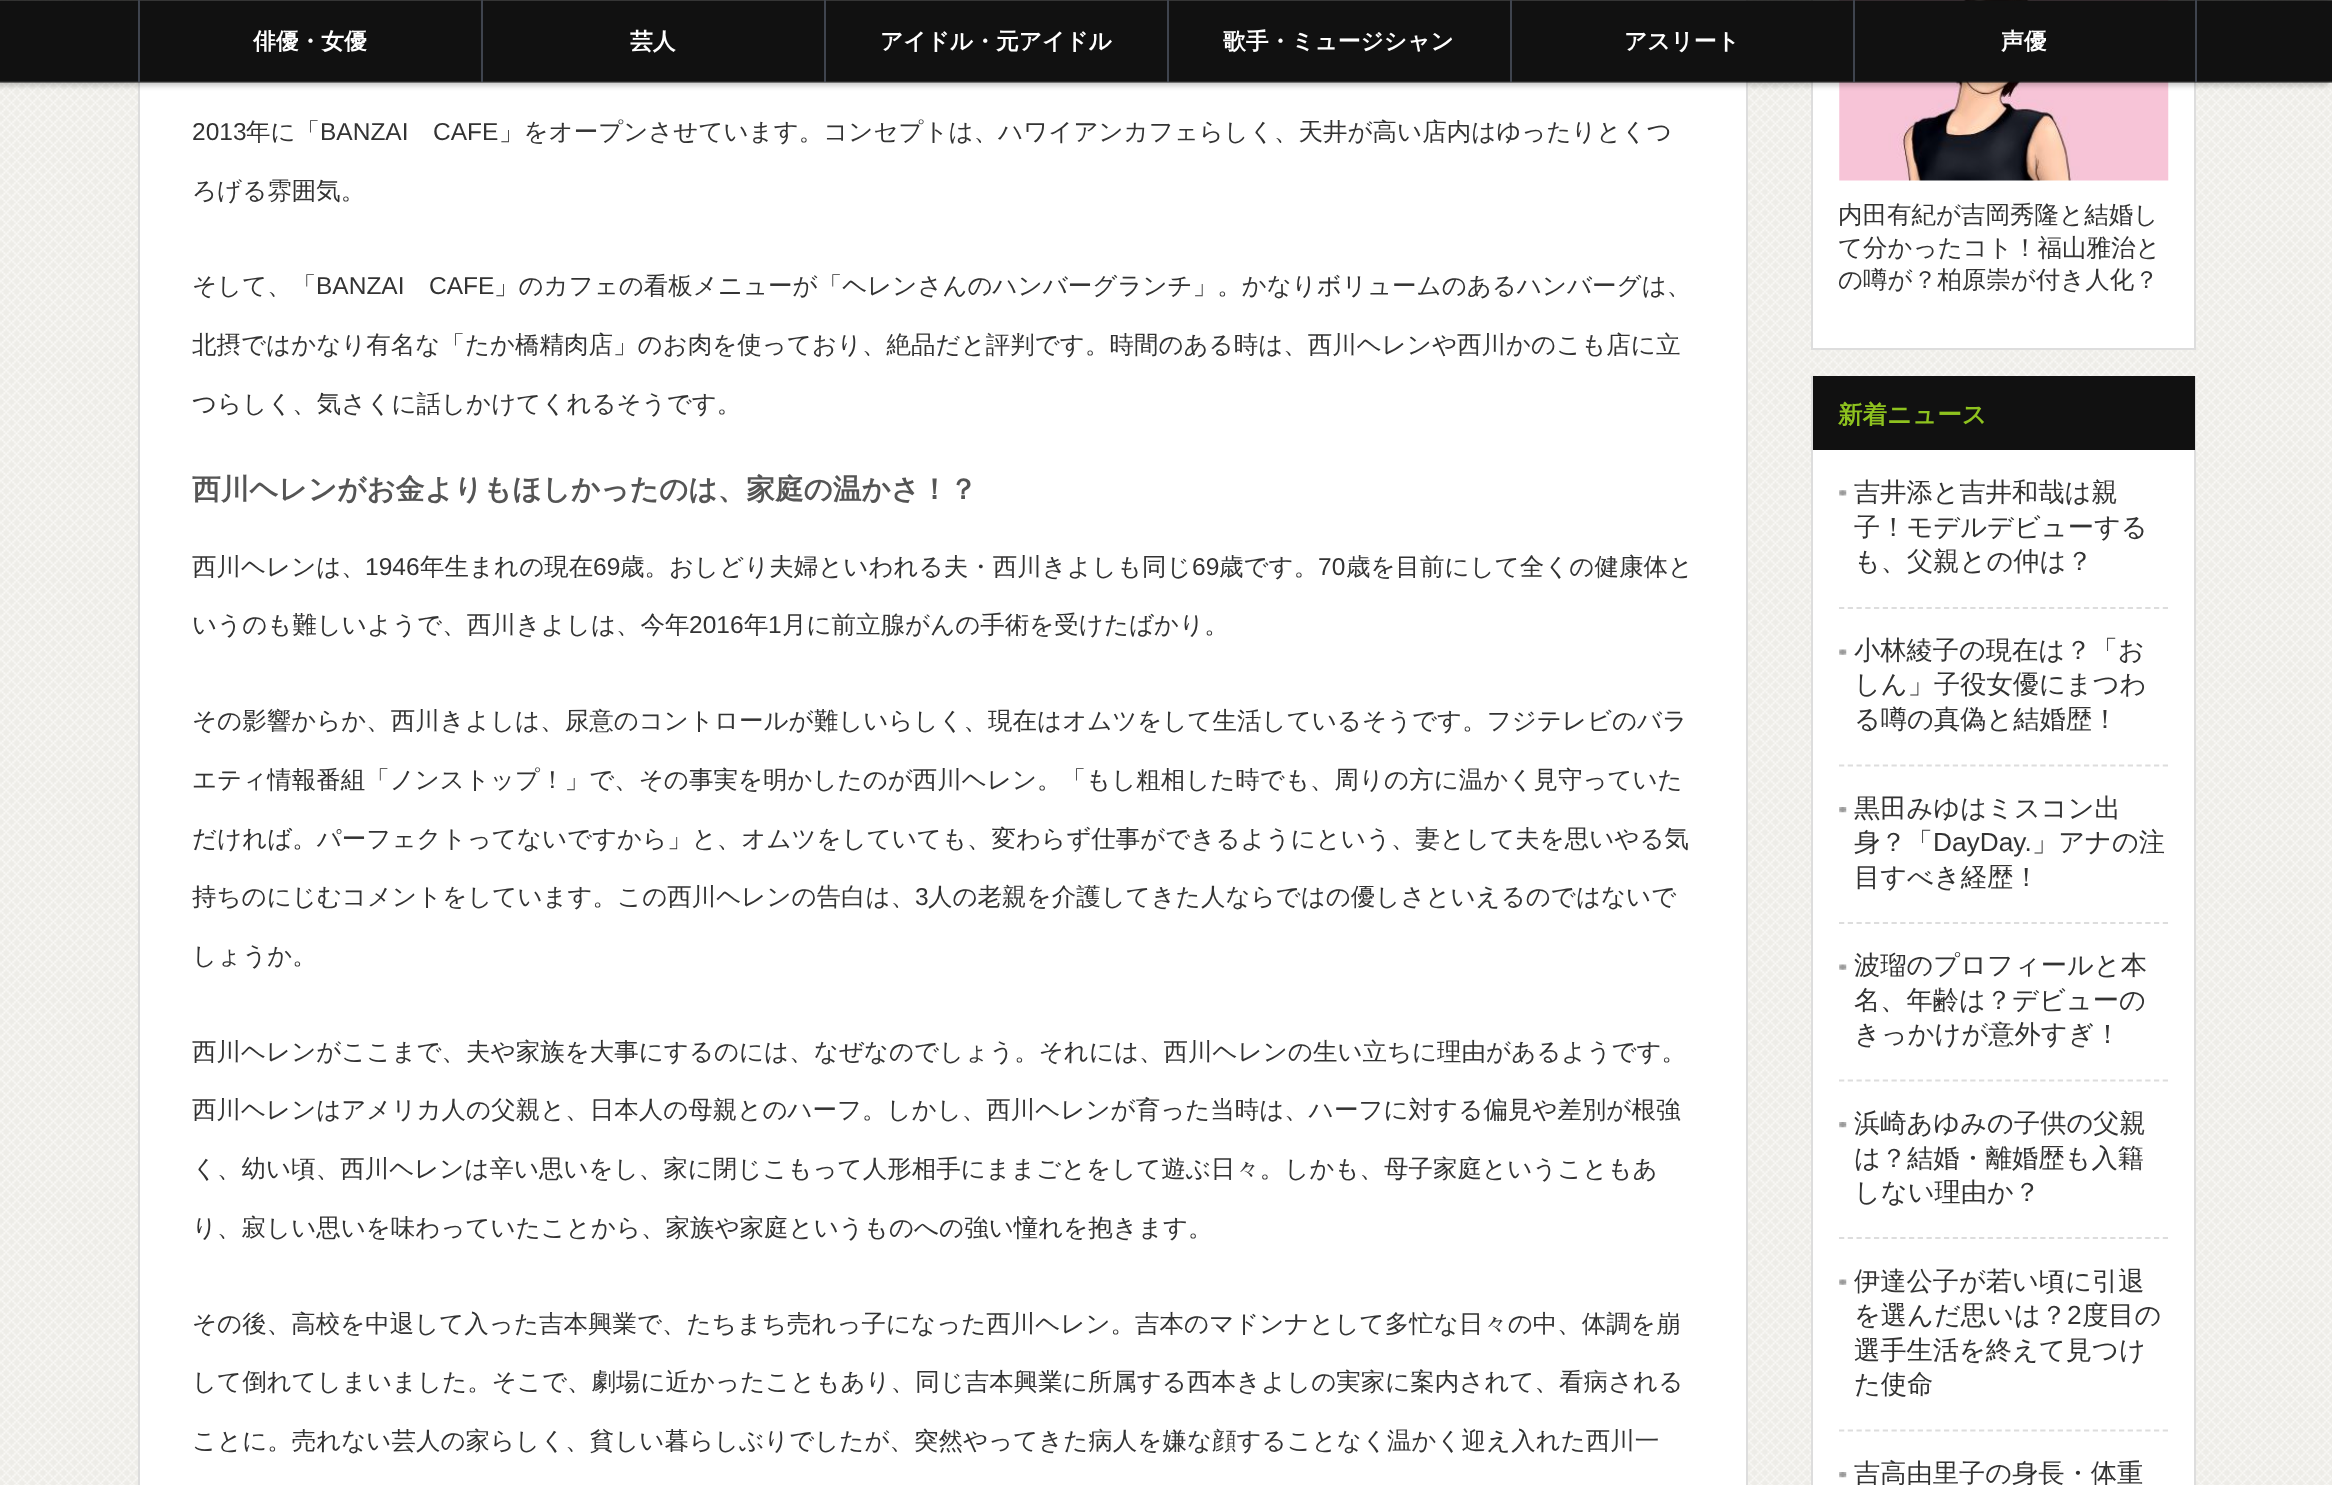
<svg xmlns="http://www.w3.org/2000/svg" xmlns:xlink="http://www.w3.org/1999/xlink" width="2332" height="1485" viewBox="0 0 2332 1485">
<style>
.cls-1{font:bold 22.75px WenQuanYi Zen Hei;fill:#ffffff}
.cls-2{font:24.5px Liberation Sans;fill:#333333}
.cls-3{font:500 24.5px WenQuanYi Zen Hei;fill:#333333}
.cls-4{font:bold 28.65px WenQuanYi Zen Hei;fill:#555555}
.cls-5{font:bold 24.5px WenQuanYi Zen Hei;fill:#8ec21f}
.cls-6{font:500 26.25px WenQuanYi Zen Hei;fill:#333333}
.cls-7{font:26.25px Liberation Sans;fill:#333333}
</style>
<rect width="100%" height="100%" fill="#ffffff"/>
<image xlink:href="image0.png" x="0" y="0" width="2332" height="1485"/>
<rect fill="#ffffff" stroke="#dddddd" stroke-width="2" x="139" y="-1" width="1608" height="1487"/>
<rect fill="#ffffff" stroke="#dddddd" stroke-width="2" x="1812" y="-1" width="383" height="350"/>
<image xlink:href="image2.png" x="1839" y="0" width="330" height="181"/>
<rect fill="#000000" fill-opacity="0.2" filter="blur(2.5px)" x="-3" y="-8" width="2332" height="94"/>
<image xlink:href="image1.png" x="0" y="0" width="2332" height="83"/>
<rect fill="#3f444e" x="138" y="0" width="2" height="82"/>
<rect fill="#3f444e" x="481" y="0" width="2" height="82"/>
<rect fill="#3f444e" x="824" y="0" width="2" height="82"/>
<rect fill="#3f444e" x="1167" y="0" width="2" height="82"/>
<rect fill="#3f444e" x="1510" y="0" width="2" height="82"/>
<rect fill="#3f444e" x="2195" y="0" width="2" height="82"/>
<rect fill="#3f444e" x="1853" y="0" width="2" height="82"/>
<rect fill="#ffffff" x="1813" y="450" width="381" height="1035"/>
<rect fill="none" stroke="#dddddd" stroke-width="2" x="1812" y="377" width="383" height="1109"/>
<rect fill="#111111" x="1813" y="376" width="382" height="74"/>
<image xlink:href="image3.png" x="1839" y="490" width="8" height="6"/>
<path fill="none" stroke="#dddddd" stroke-width="1.8" stroke-dasharray="5.25 3.5" d="M1839 608H2168"/>
<image xlink:href="image4.png" x="1839" y="649" width="8" height="6"/>
<path fill="none" stroke="#dddddd" stroke-width="1.8" stroke-dasharray="5.25 3.5" d="M1839 765.5H2168"/>
<image xlink:href="image5.png" x="1839" y="807" width="8" height="6"/>
<path fill="none" stroke="#dddddd" stroke-width="1.8" stroke-dasharray="5.25 3.5" d="M1839 923H2168"/>
<image xlink:href="image4.png" x="1839" y="964" width="8" height="6"/>
<path fill="none" stroke="#dddddd" stroke-width="1.8" stroke-dasharray="5.25 3.5" d="M1839 1080.5H2168"/>
<image xlink:href="image5.png" x="1839" y="1122" width="8" height="6"/>
<path fill="none" stroke="#dddddd" stroke-width="1.8" stroke-dasharray="5.25 3.5" d="M1839 1238H2168"/>
<image xlink:href="image4.png" x="1839" y="1279" width="8" height="6"/>
<path fill="none" stroke="#dddddd" stroke-width="1.8" stroke-dasharray="5.25 3.5" d="M1839 1430.5H2168"/>
<image xlink:href="image5.png" x="1839" y="1472" width="8" height="6"/>
<text class="cls-1" x="253" y="49">俳優・女優</text>
<text class="cls-1" x="630" y="49">芸人</text>
<text class="cls-1" x="880" y="49">アイドル・元アイドル</text>
<text class="cls-1" x="1223" y="49">歌手・ミュージシャン</text>
<text class="cls-1" x="1624" y="49">アスリート</text>
<text class="cls-1" x="2001" y="49">声優</text>
<text class="cls-2" x="192" y="140">2013</text>
<text class="cls-3" x="246" y="140">年に「</text>
<text class="cls-2" x="320" y="140">BANZAI</text>
<text class="cls-2" x="433" y="140">CAFE</text>
<text class="cls-3" x="499" y="140">」をオープンさせています。コンセプトは、ハワイアンカフェらしく、天井が高い店内はゆったりとくつ</text>
<text class="cls-3" x="192" y="199">ろげる雰囲気。</text>
<text class="cls-3" x="192" y="294">そして、「</text>
<text class="cls-2" x="316" y="294">BANZAI</text>
<text class="cls-2" x="429" y="294">CAFE</text>
<text class="cls-3" x="494" y="294">」のカフェの看板メニューが「ヘレンさんのハンバーグランチ」。かなりボリュームのあるハンバーグは、</text>
<text class="cls-3" x="192" y="353">北摂ではかなり有名な「たか橋精肉店」のお肉を使っており、絶品だと評判です。時間のある時は、西川ヘレンや西川かのこも店に立</text>
<text class="cls-3" x="192" y="412">つらしく、気さくに話しかけてくれるそうです。</text>
<text class="cls-4" x="192" y="499">西川ヘレンがお金よりもほしかったのは、家庭の温かさ！？</text>
<text class="cls-3" x="192" y="575">西川ヘレンは、</text>
<text class="cls-2" x="365" y="575">1946</text>
<text class="cls-3" x="420" y="575">年生まれの現在</text>
<text class="cls-2" x="593" y="575">69</text>
<text class="cls-3" x="620" y="575">歳。おしどり夫婦といわれる夫・西川きよしも同じ</text>
<text class="cls-2" x="1192" y="575">69</text>
<text class="cls-3" x="1219" y="575">歳です。</text>
<text class="cls-2" x="1318" y="575">70</text>
<text class="cls-3" x="1346" y="575">歳を目前にして全くの健康体と</text>
<text class="cls-3" x="192" y="633">いうのも難しいようで、西川きよしは、今年</text>
<text class="cls-2" x="689" y="633">2016</text>
<text class="cls-3" x="744" y="633">年</text>
<text class="cls-2" x="768" y="633">1</text>
<text class="cls-3" x="782" y="633">月に前立腺がんの手術を受けたばかり。</text>
<text class="cls-3" x="192" y="729">その影響からか、西川きよしは、尿意のコントロールが難しいらしく、現在はオムツをして生活しているそうです。フジテレビのバラ</text>
<text class="cls-3" x="192" y="788">エティ情報番組「ノンストップ！」で、その事実を明かしたのが西川ヘレン。「もし粗相した時でも、周りの方に温かく見守っていた</text>
<text class="cls-3" x="192" y="847">だければ。パーフェクトってないですから」と、オムツをしていても、変わらず仕事ができるようにという、妻として夫を思いやる気</text>
<text class="cls-3" x="192" y="905">持ちのにじむコメントをしています。この西川ヘレンの告白は、</text>
<text class="cls-2" x="915" y="905">3</text>
<text class="cls-3" x="928" y="905">人の老親を介護してきた人ならではの優しさといえるのではないで</text>
<text class="cls-3" x="192" y="964">しょうか。</text>
<text class="cls-3" x="192" y="1060">西川ヘレンがここまで、夫や家族を大事にするのには、なぜなのでしょう。それには、西川ヘレンの生い立ちに理由があるようです。</text>
<text class="cls-3" x="192" y="1118">西川ヘレンはアメリカ人の父親と、日本人の母親とのハーフ。しかし、西川ヘレンが育った当時は、ハーフに対する偏見や差別が根強</text>
<text class="cls-3" x="192" y="1177">く、幼い頃、西川ヘレンは辛い思いをし、家に閉じこもって人形相手にままごとをして遊ぶ日々。しかも、母子家庭ということもあ</text>
<text class="cls-3" x="192" y="1236">り、寂しい思いを味わっていたことから、家族や家庭というものへの強い憧れを抱きます。</text>
<text class="cls-3" x="192" y="1332">その後、高校を中退して入った吉本興業で、たちまち売れっ子になった西川ヘレン。吉本のマドンナとして多忙な日々の中、体調を崩</text>
<text class="cls-3" x="192" y="1390">して倒れてしまいました。そこで、劇場に近かったこともあり、同じ吉本興業に所属する西本きよしの実家に案内されて、看病される</text>
<text class="cls-3" x="192" y="1449">ことに。売れない芸人の家らしく、貧しい暮らしぶりでしたが、突然やってきた病人を嫌な顔することなく温かく迎え入れた西川一</text>
<text class="cls-3"><tspan x="1838" y="223">内田有紀が吉岡秀隆と結婚し</tspan><tspan x="1838" y="256">て分かったコト！福山雅治と</tspan><tspan x="1838" y="288">の噂が？柏原崇が付き人化？</tspan></text>
<text class="cls-5" x="1838" y="423">新着ニュース</text>
<text class="cls-6"><tspan x="1854" y="501">吉井添と吉井和哉は親</tspan><tspan x="1854" y="536">子！モデルデビューする</tspan><tspan x="1854" y="570">も、父親との仲は？</tspan></text>
<text class="cls-6"><tspan x="1854" y="659">小林綾子の現在は？「お</tspan><tspan x="1854" y="693">しん」子役女優にまつわ</tspan><tspan x="1854" y="728">る噂の真偽と結婚歴！</tspan></text>
<text class="cls-6"><tspan x="1854" y="817">黒田みゆはミスコン出</tspan><tspan x="1854" y="851">身？「</tspan></text>
<text class="cls-7" x="1933" y="851">DayDay.</text>
<text class="cls-6" x="2032" y="851">」アナの注</text>
<text class="cls-6" x="1854" y="886">目すべき経歴！</text>
<text class="cls-6"><tspan x="1854" y="974">波瑠のプロフィールと本</tspan><tspan x="1854" y="1009">名、年齢は？デビューの</tspan><tspan x="1854" y="1043">きっかけが意外すぎ！</tspan></text>
<text class="cls-6"><tspan x="1854" y="1132">浜崎あゆみの子供の父親</tspan><tspan x="1854" y="1167">は？結婚・離婚歴も入籍</tspan><tspan x="1854" y="1201">しない理由か？</tspan></text>
<text class="cls-6"><tspan x="1854" y="1290">伊達公子が若い頃に引退</tspan><tspan x="1854" y="1324">を選んだ思いは？</tspan></text>
<text class="cls-7" x="2067" y="1324">2</text>
<text class="cls-6" x="2082" y="1324">度目の</text>
<text class="cls-6"><tspan x="1854" y="1359">選手生活を終えて見つけ</tspan><tspan x="1854" y="1393">た使命</tspan></text>
<text class="cls-6" x="1854" y="1482">吉高由里子の身長・体重</text>
</svg>
